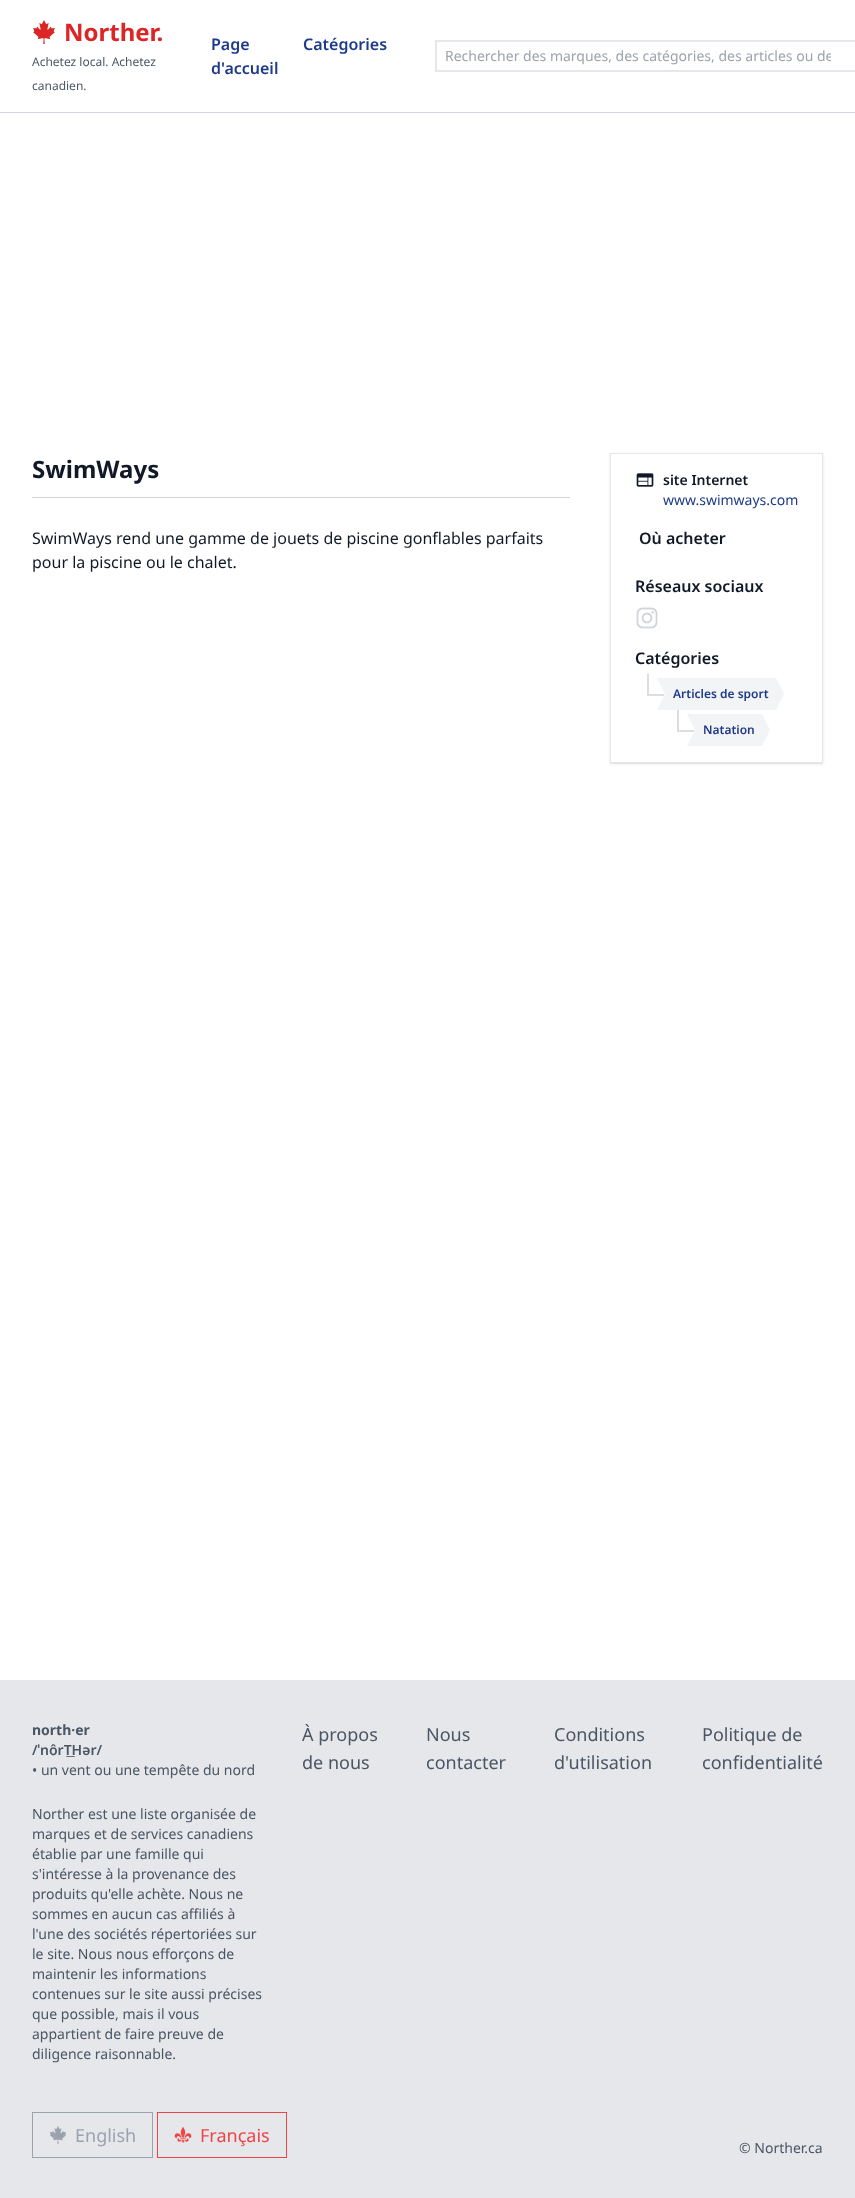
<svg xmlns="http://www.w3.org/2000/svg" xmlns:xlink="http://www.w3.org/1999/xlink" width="855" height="2198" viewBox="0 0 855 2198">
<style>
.cls-1{font:bold 24px Noto Sans;fill:#dc2626}
.cls-2{font:12px Noto Sans;fill:#4b5563}
.cls-3{font:600 16px Noto Sans;fill:#1e3a8a}
.cls-4{font:14px Noto Sans;fill:#9ca3af}
.cls-5{font:bold 24px Noto Sans;fill:#111827}
.cls-6{font:16px Noto Sans;fill:#111827}
.cls-7{font:600 14px Noto Sans;fill:#111827}
.cls-8{font:14px Noto Sans;fill:#1e3a8a}
.cls-9{font:600 16px Noto Sans;fill:#111827}
.cls-10{font:600 12px Noto Sans;fill:#1e3a8a}
.cls-11{font:bold 14px Noto Sans;fill:#4b5563}
.cls-12{font:600 14px Noto Sans;fill:#4b5563}
.cls-13{font:14px Noto Sans;fill:#4b5563}
.cls-14{font:18px Noto Sans;fill:#4b5563}
.cls-15{font:18px Noto Sans;fill:#9ca3af}
.cls-16{font:18px Noto Sans;fill:#ef4444}
</style>
<defs>
<clipPath id="clip1"><rect x="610" y="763" width="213" height="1"/></clipPath>
<clipPath id="clip2"><path d="M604 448H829V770H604ZM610 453H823V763H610Z" clip-rule="evenodd"/></clipPath>
<clipPath id="clip3"><rect x="445" y="46" width="386" height="19"/></clipPath>
</defs>
<rect width="100%" height="100%" fill="#ffffff"/>
<rect fill="#d1d5db" x="0" y="112" width="855" height="1"/>
<image xlink:href="image0.png" x="33" y="20" width="22" height="24"/>
<rect fill="none" stroke="#e5e7eb" stroke-width="2" x="436" y="41" width="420" height="30"/>
<rect fill="#d1d5db" x="32" y="497" width="538" height="1"/>
<g clip-path="url(#clip1)">
<rect fill="#000000" fill-opacity="0.06" filter="blur(1px)" x="610" y="454" width="213" height="310"/>
</g>
<g clip-path="url(#clip2)">
<rect fill="#000000" fill-opacity="0.1" filter="blur(1.5px)" x="610" y="454" width="213" height="310"/>
</g>
<rect fill="none" stroke="#e5e7eb" x="610.5" y="453.5" width="212" height="309"/>
<image xlink:href="image1.png" x="636" y="473" width="18" height="14"/>
<image xlink:href="image2.png" x="636" y="607" width="22" height="22"/>
<path fill="#f3f4f6" d="M657 678H665V694ZM665 710H657L665 694Z"/>
<rect fill="#dddddd" x="647" y="694" width="17" height="2"/>
<rect fill="#dddddd" x="647" y="674" width="2" height="22"/>
<rect fill="#f3f4f6" x="665" y="678" width="111" height="32"/>
<path fill="#f3f4f6" d="M776 710V678L784 694Z"/>
<path fill="#f3f4f6" d="M687 714H695V730ZM695 746H687L695 730Z"/>
<rect fill="#dddddd" x="677" y="730" width="17" height="2"/>
<rect fill="#dddddd" x="677" y="710" width="2" height="22"/>
<rect fill="#f3f4f6" x="695" y="714" width="67" height="32"/>
<path fill="#f3f4f6" d="M762 746V714L770 730Z"/>
<rect fill="#e5e7eb" x="0" y="1680" width="855" height="518"/>
<rect fill="none" stroke="#9ca3af" x="32.5" y="2112.5" width="120" height="45"/>
<image xlink:href="image3.png" x="50" y="2126" width="16" height="18"/>
<rect fill="none" stroke="#ef4444" x="157.5" y="2112.5" width="129" height="45"/>
<image xlink:href="image4.png" x="174" y="2127" width="18" height="16"/>
<text class="cls-1" x="64" y="41">Norther.</text>
<text class="cls-2" x="32" y="66">Achetez local. Achetez</text>
<text class="cls-2" x="32" y="90">canadien.</text>
<text class="cls-3"><tspan x="211" y="50">Page</tspan><tspan x="211" y="74">d'accueil</tspan></text>
<text class="cls-3" x="303" y="50">Catégories</text>
<g clip-path="url(#clip3)">
<text class="cls-4" x="445" y="61">Rechercher des marques, des catégories, des articles ou de</text>
</g>
<text class="cls-5" x="32" y="478">SwimWays</text>
<text class="cls-6"><tspan x="32" y="544">SwimWays rend une gamme de jouets de piscine gonflables parfaits</tspan><tspan x="32" y="568">pour la piscine ou le chalet.</tspan></text>
<text class="cls-7" x="663" y="485">site Internet</text>
<text class="cls-8" x="663" y="505">www.swimways.com</text>
<text class="cls-9" x="639" y="544">Où acheter</text>
<text class="cls-9" x="635" y="592">Réseaux sociaux</text>
<text class="cls-9" x="635" y="664">Catégories</text>
<text class="cls-10" x="673" y="698">Articles de sport</text>
<text class="cls-10" x="703" y="734">Natation</text>
<text class="cls-11" x="32" y="1735">north·er</text>
<text class="cls-12" x="32" y="1755">/ˈnôrT͟Hər/</text>
<text class="cls-13" x="32" y="1775">• un vent ou une tempête du nord</text>
<text class="cls-13"><tspan x="32" y="1819">Norther est une liste organisée de</tspan><tspan x="32" y="1839">marques et de services canadiens</tspan><tspan x="32" y="1859">établie par une famille qui</tspan><tspan x="32" y="1879">s'intéresse à la provenance des</tspan><tspan x="32" y="1899">produits qu'elle achète. Nous ne</tspan><tspan x="32" y="1919">sommes en aucun cas affiliés à</tspan><tspan x="32" y="1939">l'une des sociétés répertoriées sur</tspan><tspan x="32" y="1959">le site. Nous nous efforçons de</tspan><tspan x="32" y="1979">maintenir les informations</tspan><tspan x="32" y="1999">contenues sur le site aussi précises</tspan><tspan x="32" y="2019">que possible, mais il vous</tspan><tspan x="32" y="2039">appartient de faire preuve de</tspan><tspan x="32" y="2059">diligence raisonnable.</tspan></text>
<text class="cls-14"><tspan x="302" y="1741">À propos</tspan><tspan x="302" y="1769">de nous</tspan></text>
<text class="cls-14"><tspan x="426" y="1741">Nous</tspan><tspan x="426" y="1769">contacter</tspan></text>
<text class="cls-14"><tspan x="554" y="1741">Conditions</tspan><tspan x="554" y="1769">d'utilisation</tspan></text>
<text class="cls-14"><tspan x="702" y="1741">Politique de</tspan><tspan x="702" y="1769">confidentialité</tspan></text>
<text class="cls-15" x="75" y="2142">English</text>
<text class="cls-16" x="200" y="2142">Français</text>
<text class="cls-13" x="739" y="2153">© Norther.ca</text>
</svg>
